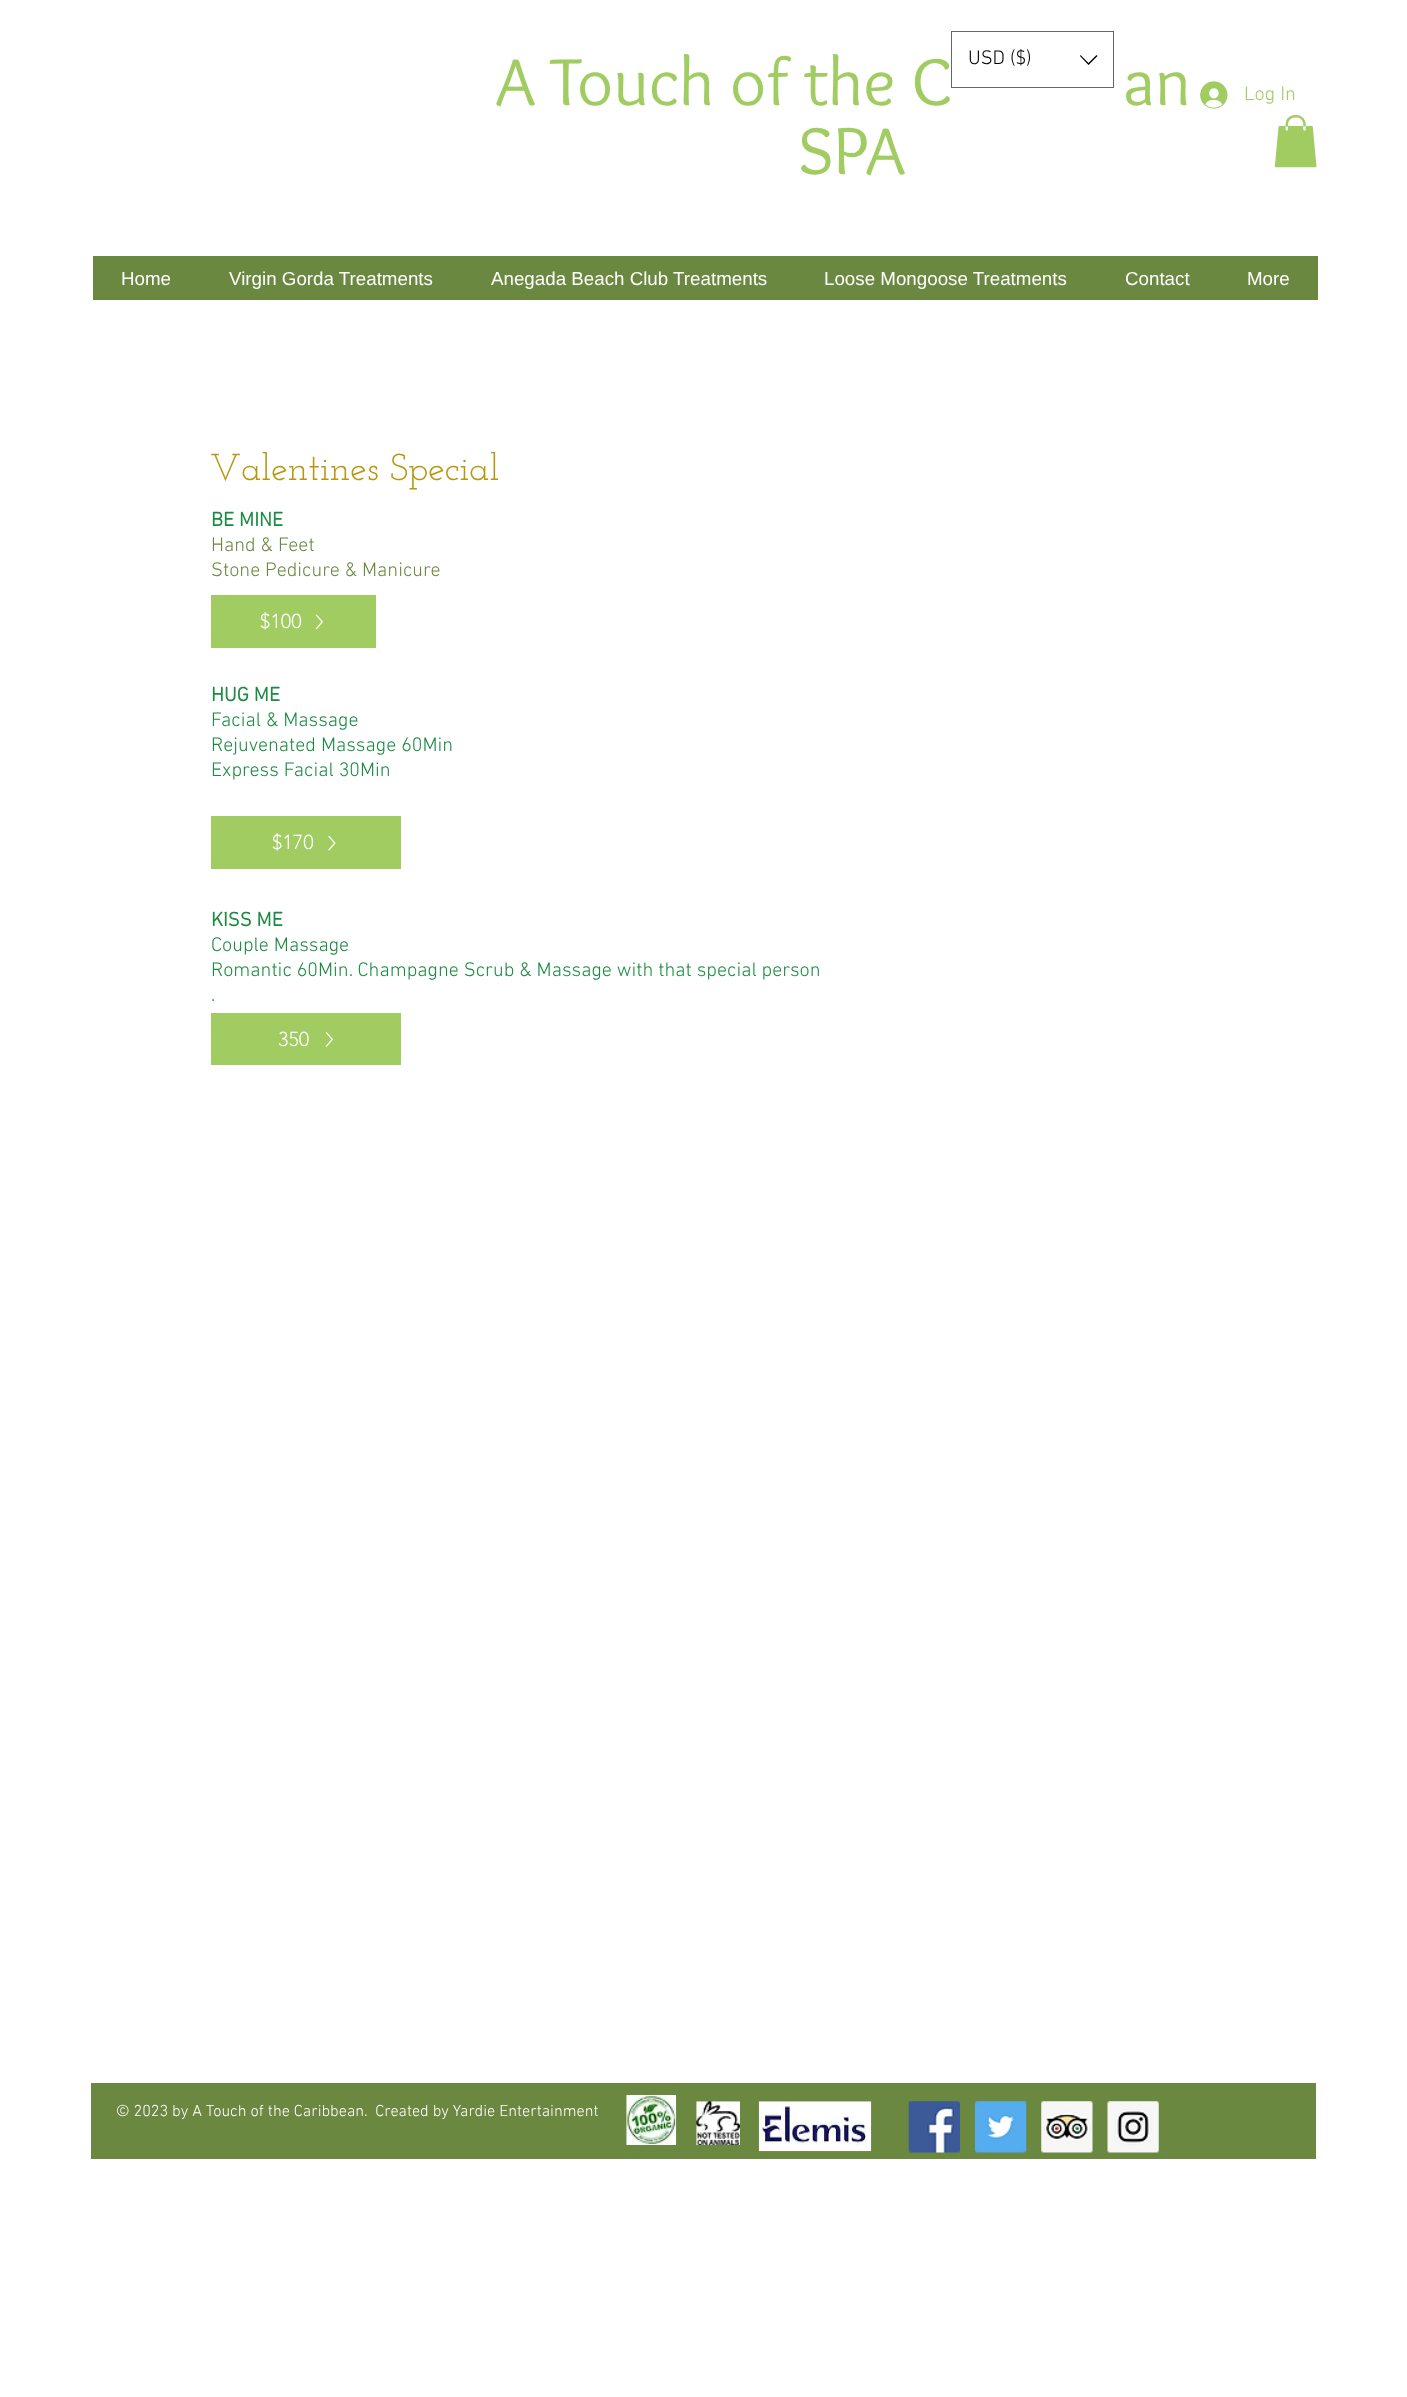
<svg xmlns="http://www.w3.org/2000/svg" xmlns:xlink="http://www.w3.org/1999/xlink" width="1407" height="2397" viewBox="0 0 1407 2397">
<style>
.cls-1{font:300 20px 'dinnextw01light';fill:#000000}
.cls-2{font:68.75px Overlock;fill:#a0cc62}
.cls-3{font:300 20px 'dinnextw01light';fill:#a0cc62}
.cls-4{font:18.75px Liberation Sans;fill:#ffffff}
.cls-5{font:37.5px Josefin Slab;fill:#b89710}
.cls-6{font:bold 20px 'dinnextw01light';fill:#1c8a43}
.cls-7{font:300 20px 'dinnextw01light';fill:#6b8841}
.cls-8{font:300 20px 'dinnextw01light';fill:#1c8a43}
.cls-9{font:300 20px 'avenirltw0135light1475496';fill:#ffffff}
.cls-10{font:300 16.25px 'dinnextw01light';fill:#ffffff}
</style>
<rect width="100%" height="100%" fill="#ffffff"/>
<rect fill="none" stroke="#666666" x="951.5" y="31.5" width="162" height="56"/>
<path fill="#000000" fill-rule="evenodd" d="M1096.5 55L1097.5 56L1088.5 65L1080 56L1080.5 55L1088.5 63Z"/>
<image xlink:href="image0.png" x="1200" y="81" width="28" height="28"/>
<image xlink:href="image1.png" x="1274" y="115" width="43" height="53"/>
<rect fill="#6b8841" x="93" y="256" width="1225" height="44"/>
<rect fill="#a0cc62" x="211" y="595" width="165" height="53"/>
<image xlink:href="image2.png" x="315" y="614" width="8" height="16"/>
<rect fill="#a0cc62" x="211" y="816" width="190" height="53"/>
<image xlink:href="image3.png" x="328" y="835" width="8" height="16"/>
<rect fill="#a0cc62" x="211" y="1013" width="190" height="52"/>
<image xlink:href="image4.png" x="325" y="1032" width="8" height="15"/>
<rect fill="#6b8841" x="91" y="2083" width="1225" height="76"/>
<image xlink:href="image5.png" x="626" y="2095" width="51" height="50"/>
<image xlink:href="image6.png" x="696" y="2101" width="44" height="44"/>
<image xlink:href="image7.png" x="758" y="2101" width="114" height="51"/>
<image xlink:href="image8.png" x="908" y="2101" width="52" height="52"/>
<image xlink:href="image9.png" x="975" y="2101" width="52" height="52"/>
<image xlink:href="image10.png" x="1041" y="2101" width="52" height="52"/>
<image xlink:href="image11.png" x="1107" y="2101" width="52" height="52"/>
<text class="cls-1" x="968" y="64">USD ($)</text>
<text class="cls-2" x="496" y="105">A Touch of the C</text>
<text class="cls-2" x="1123" y="105">an</text>
<text class="cls-2" x="798" y="174">SPA</text>
<text class="cls-3" x="1244" y="100">Log In</text>
<text class="cls-4" x="121" y="285">Home</text>
<text class="cls-4" x="229" y="285">Virgin Gorda Treatments</text>
<text class="cls-4" x="491" y="285">Anegada Beach Club Treatments</text>
<text class="cls-4" x="824" y="285">Loose Mongoose Treatments</text>
<text class="cls-4" x="1125" y="285">Contact</text>
<text class="cls-4" x="1247" y="285">More</text>
<text class="cls-5" x="210" y="480">Valentines Special</text>
<text class="cls-6" x="211" y="526">BE MINE</text>
<text class="cls-7"><tspan x="211" y="551">Hand &amp; Feet</tspan><tspan x="211" y="576">Stone Pedicure &amp; Manicure</tspan></text>
<text class="cls-6" x="211" y="701">HUG ME</text>
<text class="cls-8"><tspan x="211" y="726">Facial &amp; Massage</tspan><tspan x="211" y="751">Rejuvenated Massage 60Min</tspan><tspan x="211" y="776">Express Facial 30Min</tspan></text>
<text class="cls-6" x="211" y="926">KISS ME</text>
<text class="cls-8"><tspan x="211" y="951">Couple Massage</tspan><tspan x="211" y="976">Romantic 60Min. Champagne Scrub &amp; Massage with that special person</tspan><tspan x="211" y="1001">.</tspan></text>
<text class="cls-9" x="260" y="628">$100</text>
<text class="cls-9" x="272" y="849">$170</text>
<text class="cls-9" x="278" y="1046">350</text>
<text class="cls-10" xml:space="preserve" x="116" y="2116">© 2023 by A Touch of the Caribbean.  Created by Yardie Entertainment</text>
</svg>
